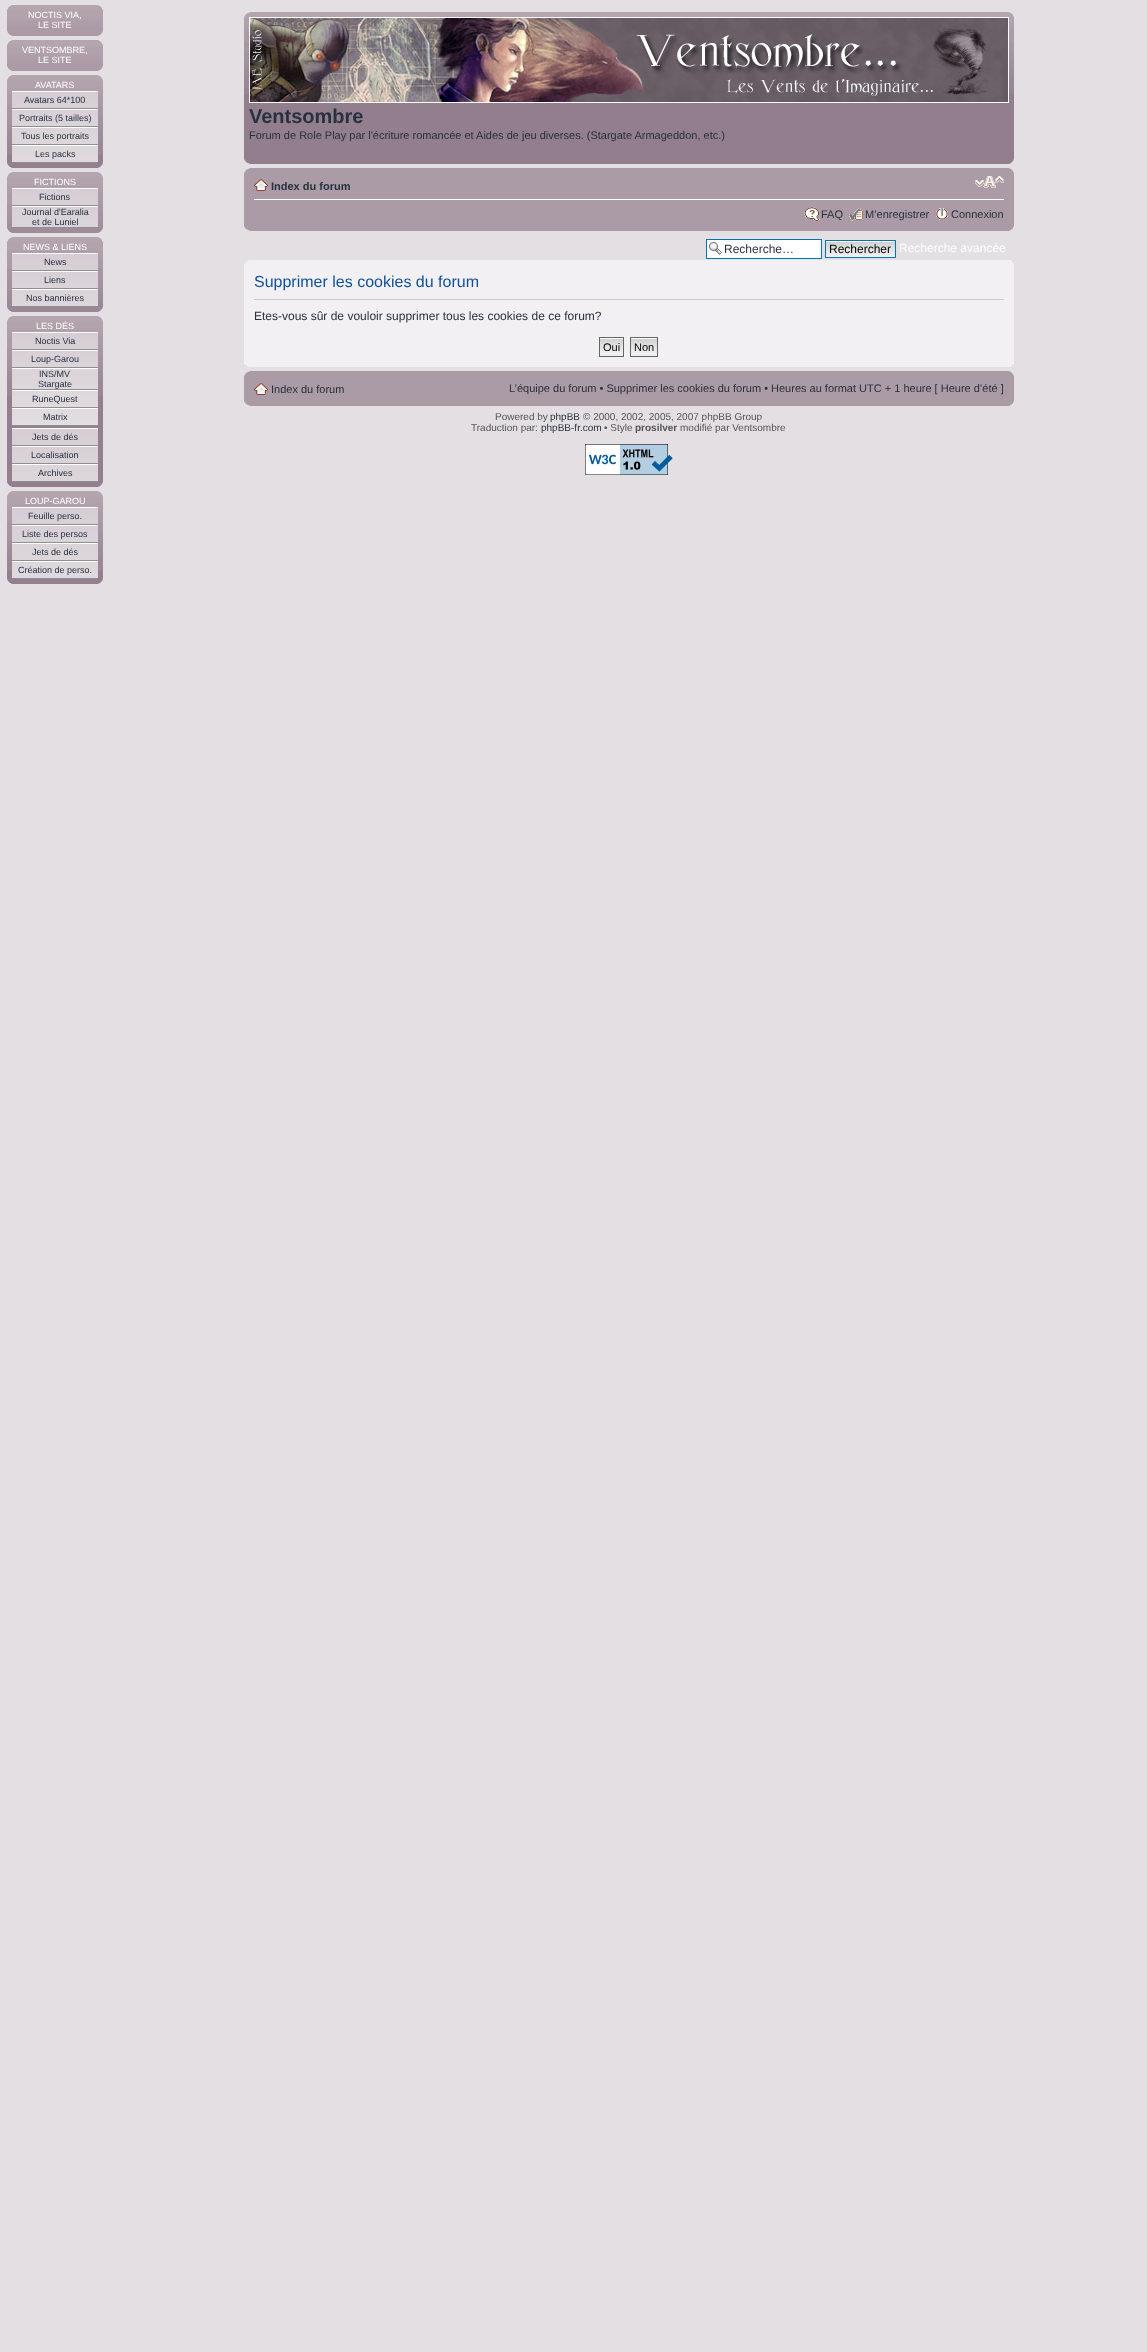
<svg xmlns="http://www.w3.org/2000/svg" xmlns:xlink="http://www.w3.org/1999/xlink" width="1147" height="2352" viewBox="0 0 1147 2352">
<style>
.cls-1{font:9px Liberation Sans;fill:#ffffff}
.cls-2{font:9px Liberation Sans;fill:#28313f}
.cls-3{font:bold 20px Liberation Sans;fill:#28313f}
.cls-4{font:11px Liberation Sans;fill:#28313f}
.cls-5{font:bold 11px Liberation Sans;fill:#28313f}
.cls-6{font:12px Liberation Sans;fill:#28313f}
.cls-7{font:12px Liberation Sans;fill:#000000}
.cls-8{font:12px Liberation Sans;fill:#ffffff}
.cls-9{font:16px Liberation Sans;fill:#115098}
.cls-10{font:11px Liberation Sans;fill:#000000}
.cls-11{font:10px Liberation Sans;fill:#555555}
.cls-12{font:10px Liberation Sans;fill:#28313f}
.cls-13{font:bold 10px Liberation Sans;fill:#555555}
</style>
<rect width="100%" height="100%" fill="#e3dfe2"/>
<image xlink:href="image0.png" x="7" y="5" width="96" height="31"/>
<image xlink:href="image1.png" x="7" y="5" width="5" height="5"/>
<image xlink:href="image2.png" x="98" y="5" width="5" height="5"/>
<image xlink:href="image3.png" x="7" y="31" width="5" height="5"/>
<image xlink:href="image4.png" x="98" y="31" width="5" height="5"/>
<image xlink:href="image0.png" x="7" y="40" width="96" height="31"/>
<image xlink:href="image1.png" x="7" y="40" width="5" height="5"/>
<image xlink:href="image2.png" x="98" y="40" width="5" height="5"/>
<image xlink:href="image3.png" x="7" y="66" width="5" height="5"/>
<image xlink:href="image4.png" x="98" y="66" width="5" height="5"/>
<rect fill="#947f8e" x="7" y="155" width="96" height="13"/>
<image xlink:href="image5.png" x="7" y="75" width="96" height="80"/>
<image xlink:href="image1.png" x="7" y="75" width="5" height="5"/>
<image xlink:href="image2.png" x="98" y="75" width="5" height="5"/>
<image xlink:href="image6.png" x="12" y="92" width="86" height="70"/>
<rect fill="#ffffff" x="12" y="91" width="86" height="1"/>
<rect fill="#8f8f8f" x="12" y="108" width="86" height="1"/>
<rect fill="#ffffff" x="12" y="109" width="86" height="1"/>
<rect fill="#8f8f8f" x="12" y="126" width="86" height="1"/>
<rect fill="#ffffff" x="12" y="127" width="86" height="1"/>
<rect fill="#8f8f8f" x="12" y="144" width="86" height="1"/>
<rect fill="#ffffff" x="12" y="145" width="86" height="1"/>
<rect fill="#8f8f8f" x="12" y="162" width="86" height="1"/>
<image xlink:href="image7.png" x="7" y="163" width="5" height="5"/>
<image xlink:href="image8.png" x="98" y="163" width="5" height="5"/>
<image xlink:href="image9.png" x="7" y="172" width="96" height="61"/>
<image xlink:href="image1.png" x="7" y="172" width="5" height="5"/>
<image xlink:href="image2.png" x="98" y="172" width="5" height="5"/>
<image xlink:href="image10.png" x="12" y="189" width="86" height="38"/>
<rect fill="#ffffff" x="12" y="188" width="86" height="1"/>
<rect fill="#8f8f8f" x="12" y="205" width="86" height="1"/>
<rect fill="#ffffff" x="12" y="206" width="86" height="1"/>
<rect fill="#8f8f8f" x="12" y="227" width="86" height="1"/>
<image xlink:href="image11.png" x="7" y="228" width="5" height="5"/>
<image xlink:href="image12.png" x="98" y="228" width="5" height="5"/>
<image xlink:href="image13.png" x="7" y="237" width="96" height="75"/>
<image xlink:href="image1.png" x="7" y="237" width="5" height="5"/>
<image xlink:href="image2.png" x="98" y="237" width="5" height="5"/>
<image xlink:href="image14.png" x="12" y="254" width="86" height="52"/>
<rect fill="#ffffff" x="12" y="253" width="86" height="1"/>
<rect fill="#8f8f8f" x="12" y="270" width="86" height="1"/>
<rect fill="#ffffff" x="12" y="271" width="86" height="1"/>
<rect fill="#8f8f8f" x="12" y="288" width="86" height="1"/>
<rect fill="#ffffff" x="12" y="289" width="86" height="1"/>
<rect fill="#8f8f8f" x="12" y="306" width="86" height="1"/>
<image xlink:href="image15.png" x="7" y="307" width="5" height="5"/>
<image xlink:href="image16.png" x="98" y="307" width="5" height="5"/>
<rect fill="#947f8e" x="7" y="396" width="96" height="91"/>
<image xlink:href="image5.png" x="7" y="316" width="96" height="80"/>
<image xlink:href="image1.png" x="7" y="316" width="5" height="5"/>
<image xlink:href="image2.png" x="98" y="316" width="5" height="5"/>
<image xlink:href="image17.png" x="12" y="333" width="86" height="92"/>
<rect fill="#ffffff" x="12" y="332" width="86" height="1"/>
<rect fill="#8f8f8f" x="12" y="349" width="86" height="1"/>
<rect fill="#ffffff" x="12" y="350" width="86" height="1"/>
<rect fill="#8f8f8f" x="12" y="367" width="86" height="1"/>
<rect fill="#ffffff" x="12" y="368" width="86" height="1"/>
<rect fill="#8f8f8f" x="12" y="389" width="86" height="1"/>
<rect fill="#ffffff" x="12" y="390" width="86" height="1"/>
<rect fill="#8f8f8f" x="12" y="407" width="86" height="1"/>
<rect fill="#ffffff" x="12" y="408" width="86" height="1"/>
<rect fill="#8f8f8f" x="12" y="425" width="86" height="1"/>
<image xlink:href="image14.png" x="12" y="429" width="86" height="52"/>
<rect fill="#ffffff" x="12" y="428" width="86" height="1"/>
<rect fill="#8f8f8f" x="12" y="445" width="86" height="1"/>
<rect fill="#ffffff" x="12" y="446" width="86" height="1"/>
<rect fill="#8f8f8f" x="12" y="463" width="86" height="1"/>
<rect fill="#ffffff" x="12" y="464" width="86" height="1"/>
<rect fill="#8f8f8f" x="12" y="481" width="86" height="1"/>
<image xlink:href="image7.png" x="7" y="482" width="5" height="5"/>
<image xlink:href="image8.png" x="98" y="482" width="5" height="5"/>
<rect fill="#947f8e" x="7" y="571" width="96" height="13"/>
<image xlink:href="image5.png" x="7" y="491" width="96" height="80"/>
<image xlink:href="image1.png" x="7" y="491" width="5" height="5"/>
<image xlink:href="image2.png" x="98" y="491" width="5" height="5"/>
<image xlink:href="image6.png" x="12" y="508" width="86" height="70"/>
<rect fill="#ffffff" x="12" y="507" width="86" height="1"/>
<rect fill="#8f8f8f" x="12" y="524" width="86" height="1"/>
<rect fill="#ffffff" x="12" y="525" width="86" height="1"/>
<rect fill="#8f8f8f" x="12" y="542" width="86" height="1"/>
<rect fill="#ffffff" x="12" y="543" width="86" height="1"/>
<rect fill="#8f8f8f" x="12" y="560" width="86" height="1"/>
<rect fill="#ffffff" x="12" y="561" width="86" height="1"/>
<rect fill="#8f8f8f" x="12" y="578" width="86" height="1"/>
<image xlink:href="image7.png" x="7" y="579" width="5" height="5"/>
<image xlink:href="image8.png" x="98" y="579" width="5" height="5"/>
<rect fill="#937e8d" x="244" y="94" width="770" height="70"/>
<image xlink:href="image18.png" x="244" y="12" width="770" height="82"/>
<image xlink:href="image19.png" x="244" y="12" width="6" height="5"/>
<image xlink:href="image20.png" x="1009" y="12" width="5" height="5"/>
<image xlink:href="image21.png" x="249" y="17" width="760" height="86"/>
<image xlink:href="image22.png" x="244" y="159" width="6" height="5"/>
<image xlink:href="image23.png" x="1009" y="159" width="5" height="5"/>
<rect fill="#aa9ba6" x="244" y="168" width="770" height="63"/>
<image xlink:href="image24.png" x="244" y="168" width="6" height="5"/>
<image xlink:href="image25.png" x="1009" y="168" width="5" height="5"/>
<rect fill="#ffffff" x="254" y="199" width="750" height="1"/>
<image xlink:href="image26.png" x="254" y="179" width="14" height="12"/>
<image xlink:href="image27.png" x="975" y="176" width="29" height="12"/>
<image xlink:href="image28.png" x="804" y="207" width="16" height="14"/>
<image xlink:href="image29.png" x="849" y="208" width="14" height="13"/>
<image xlink:href="image30.png" x="936" y="208" width="12" height="12"/>
<image xlink:href="image31.png" x="244" y="226" width="6" height="5"/>
<image xlink:href="image32.png" x="1009" y="226" width="5" height="5"/>
<rect fill="#ffffff" x="707" y="240" width="114" height="18"/>
<image xlink:href="image33.png" x="709" y="242" width="13" height="13"/>
<rect fill="none" stroke="#0075b0" x="706.5" y="239.5" width="115" height="19"/>
<image xlink:href="image34.png" x="826" y="241" width="69" height="16"/>
<rect fill="none" stroke="#0075b0" x="825.5" y="240.5" width="70" height="17"/>
<rect fill="#f2f0f2" x="244" y="260" width="770" height="107"/>
<image xlink:href="image35.png" x="244" y="260" width="5" height="4"/>
<image xlink:href="image36.png" x="1010" y="260" width="4" height="4"/>
<rect fill="#cccccc" x="254" y="299" width="750" height="1"/>
<image xlink:href="image37.png" x="600" y="338" width="23" height="18"/>
<rect fill="none" stroke="#666666" x="599.5" y="337.5" width="24" height="19"/>
<image xlink:href="image38.png" x="631" y="338" width="26" height="18"/>
<rect fill="none" stroke="#666666" x="630.5" y="337.5" width="27" height="19"/>
<image xlink:href="image39.png" x="244" y="363" width="5" height="4"/>
<image xlink:href="image40.png" x="1010" y="363" width="4" height="4"/>
<rect fill="#aa9ba6" x="244" y="371" width="770" height="35"/>
<image xlink:href="image24.png" x="244" y="371" width="6" height="5"/>
<image xlink:href="image25.png" x="1009" y="371" width="5" height="5"/>
<image xlink:href="image26.png" x="254" y="383" width="14" height="12"/>
<image xlink:href="image31.png" x="244" y="401" width="6" height="5"/>
<image xlink:href="image32.png" x="1009" y="401" width="5" height="5"/>
<image xlink:href="image41.png" x="585" y="444" width="88" height="31"/>
<text class="cls-1" x="28" y="18">NOCTIS VIA,</text>
<text class="cls-1" x="38" y="28">LE SITE</text>
<text class="cls-1" x="22" y="53">VENTSOMBRE,</text>
<text class="cls-1" x="38" y="63">LE SITE</text>
<text class="cls-1" x="35" y="88">AVATARS</text>
<text class="cls-2" x="24" y="103">Avatars 64*100</text>
<text class="cls-2" x="19" y="121">Portraits (5 tailles)</text>
<text class="cls-2" x="21" y="139">Tous les portraits</text>
<text class="cls-2" x="35" y="157">Les packs</text>
<text class="cls-1" x="34" y="185">FICTIONS</text>
<text class="cls-2" x="39" y="200">Fictions</text>
<text class="cls-2" x="22" y="215">Journal d'Earalia</text>
<text class="cls-2" x="32" y="225">et de Luniel</text>
<text class="cls-1" x="23" y="250">NEWS &amp; LIENS</text>
<text class="cls-2" x="44" y="265">News</text>
<text class="cls-2" x="44" y="283">Liens</text>
<text class="cls-2" x="26" y="301">Nos bannières</text>
<text class="cls-1" x="36" y="329">LES DÉS</text>
<text class="cls-2" x="35" y="344">Noctis Via</text>
<text class="cls-2" x="31" y="362">Loup-Garou</text>
<text class="cls-2" x="39" y="377">INS/MV</text>
<text class="cls-2" x="38" y="387">Stargate</text>
<text class="cls-2" x="32" y="402">RuneQuest</text>
<text class="cls-2" x="43" y="420">Matrix</text>
<text class="cls-2" x="32" y="440">Jets de dés</text>
<text class="cls-2" x="31" y="458">Localisation</text>
<text class="cls-2" x="38" y="476">Archives</text>
<text class="cls-1" x="25" y="504">LOUP-GAROU</text>
<text class="cls-2" x="28" y="519">Feuille perso.</text>
<text class="cls-2" x="22" y="537">Liste des persos</text>
<text class="cls-2" x="32" y="555">Jets de dés</text>
<text class="cls-2" x="18" y="573">Création de perso.</text>
<text class="cls-3" x="249" y="123">Ventsombre</text>
<text class="cls-4" x="249" y="139">Forum de Role Play par l'écriture romancée et Aides de jeu diverses. (Stargate Armageddon, etc.)</text>
<text class="cls-5" x="271" y="190">Index du forum</text>
<text class="cls-4" x="821" y="218">FAQ</text>
<text class="cls-4" x="865" y="218">M’enregistrer</text>
<text class="cls-4" x="951" y="218">Connexion</text>
<text class="cls-6" x="724" y="253">Recherche…</text>
<text class="cls-7" x="829" y="253">Rechercher</text>
<text class="cls-8" x="899" y="252">Recherche avancée</text>
<text class="cls-9" x="254" y="287">Supprimer les cookies du forum</text>
<text class="cls-6" x="254" y="320">Etes-vous sûr de vouloir supprimer tous les cookies de ce forum?</text>
<text class="cls-10" x="603" y="351">Oui</text>
<text class="cls-10" x="634" y="351">Non</text>
<text class="cls-4" x="271" y="393">Index du forum</text>
<text class="cls-4" x="509" y="392">L’équipe du forum • Supprimer les cookies du forum • Heures au format UTC + 1 heure [ Heure d’été ]</text>
<text class="cls-11" x="495" y="420">Powered by</text>
<text class="cls-12" x="550" y="420">phpBB</text>
<text class="cls-11" x="583" y="420">© 2000, 2002, 2005, 2007 phpBB Group</text>
<text class="cls-11" x="471" y="431">Traduction par:</text>
<text class="cls-12" x="541" y="431">phpBB-fr.com</text>
<text class="cls-11" x="604" y="431">• Style</text>
<text class="cls-13" x="635" y="431">prosilver</text>
<text class="cls-11" x="680" y="431">modifié par Ventsombre</text>
</svg>
